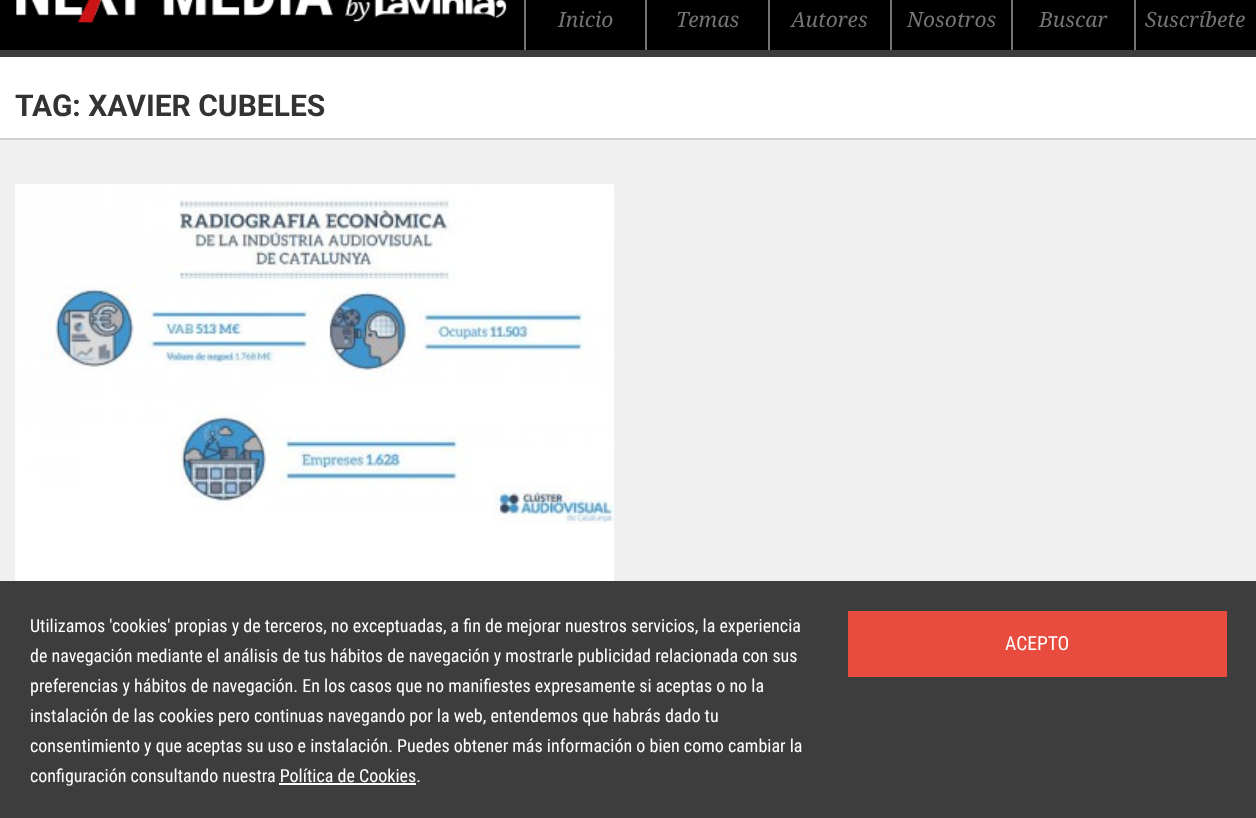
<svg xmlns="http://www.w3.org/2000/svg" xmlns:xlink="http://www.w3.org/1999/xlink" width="1256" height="818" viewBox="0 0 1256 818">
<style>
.cls-1{font:italic 21px Droid Serif;fill:#747474}
.cls-2{font:bold 30px Roboto;fill:#333333}
.cls-3{font:18px Roboto Condensed;fill:#ffffff}
.cls-4{font:19.5px Roboto Condensed;fill:#ffffff}
</style>
<rect width="100%" height="100%" fill="#f0f0f0"/>
<rect fill="#000000" x="0" y="0" width="1256" height="50"/>
<rect fill="#3d3d3d" x="0" y="50" width="1256" height="7"/>
<image xlink:href="image0.png" x="16" y="0" width="491" height="23"/>
<rect fill="#747474" x="645" y="0" width="2" height="50"/>
<rect fill="#747474" x="524" y="0" width="2" height="50"/>
<rect fill="#747474" x="768" y="0" width="2" height="50"/>
<rect fill="#747474" x="890" y="0" width="2" height="50"/>
<rect fill="#747474" x="1011" y="0" width="2" height="50"/>
<rect fill="#747474" x="1134" y="0" width="2" height="50"/>
<rect fill="#ffffff" x="0" y="57" width="1256" height="81"/>
<rect fill="#d2d2d2" x="0" y="138" width="1256" height="2"/>
<rect fill="#ffffff" x="15" y="185" width="599" height="396"/>
<image xlink:href="image1.png" x="15" y="184" width="599" height="340"/>
<rect fill="#3d3d3d" x="0" y="581" width="1256" height="237"/>
<rect fill="#ffffff" x="279" y="783" width="137" height="2"/>
<rect fill="#e74c3e" x="848" y="611" width="379" height="66"/>
<text class="cls-1" x="558" y="27">Inicio</text>
<text class="cls-1" x="676" y="27">Temas</text>
<text class="cls-1" x="791" y="27">Autores</text>
<text class="cls-1" x="907" y="27">Nosotros</text>
<text class="cls-1" x="1039" y="27">Buscar</text>
<text class="cls-1" x="1145" y="27">Suscríbete</text>
<text class="cls-2" x="15" y="116">TAG: XAVIER CUBELES</text>
<text class="cls-3"><tspan x="30" y="632">Utilizamos 'cookies' propias y de terceros, no exceptuadas, a fin de mejorar nuestros servicios, la experiencia</tspan><tspan x="30" y="662">de navegación mediante el análisis de tus hábitos de navegación y mostrarle publicidad relacionada con sus</tspan><tspan x="30" y="692">preferencias y hábitos de navegación. En los casos que no manifiestes expresamente si aceptas o no la</tspan><tspan x="30" y="722">instalación de las cookies pero continuas navegando por la web, entendemos que habrás dado tu</tspan><tspan x="30" y="752">consentimiento y que aceptas su uso e instalación. Puedes obtener más información o bien como cambiar la</tspan><tspan x="30" y="782">configuración consultando nuestra Política de Cookies.</tspan></text>
<text class="cls-4" x="1005" y="650">ACEPTO</text>
</svg>
